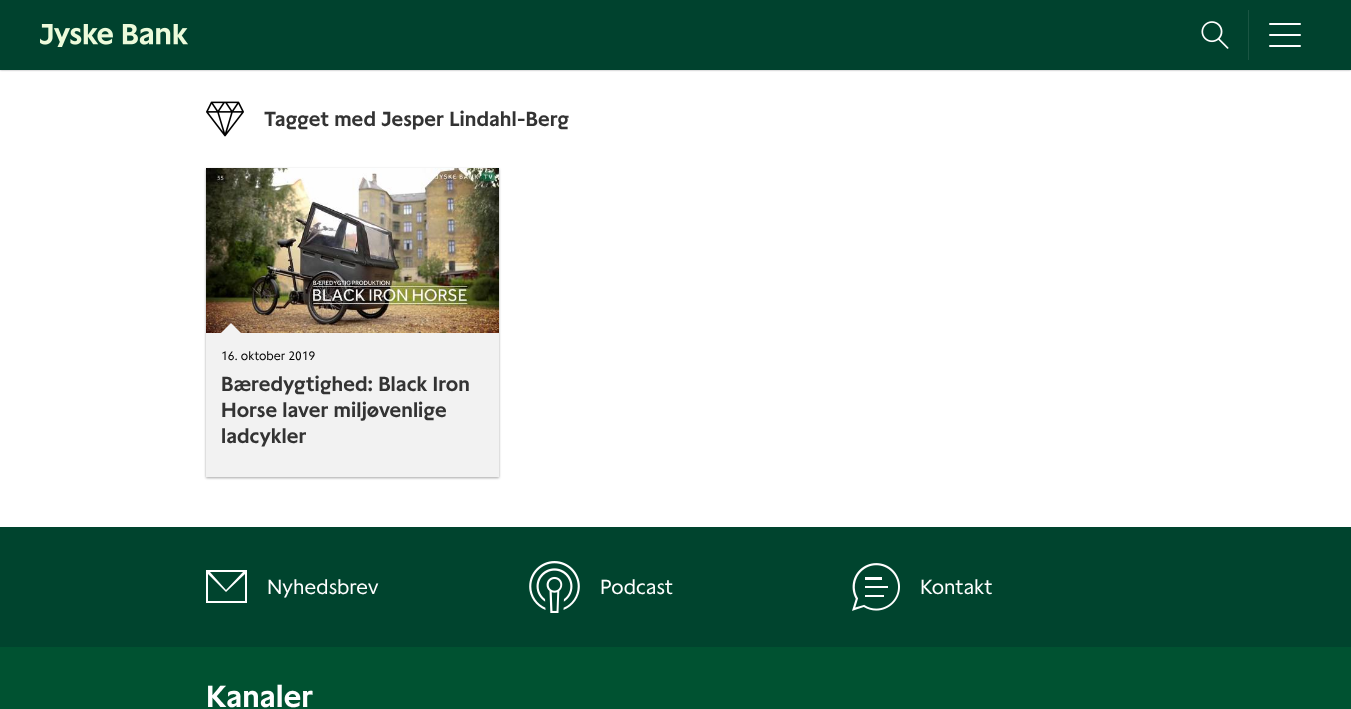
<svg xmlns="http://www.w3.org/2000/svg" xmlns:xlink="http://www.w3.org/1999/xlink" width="1351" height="709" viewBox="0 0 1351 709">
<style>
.cls-1{font:bold 20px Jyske;fill:#333333}
.cls-2{font:12px Jyske;fill:#000000}
.cls-3{font:20px Jyske;fill:#ffffff}
.cls-4{font:bold 30px Jyske;fill:#ffffff}
</style>
<rect width="100%" height="100%" fill="#ffffff"/>
<rect fill="#9b9da0" filter="blur(1px)" x="0" y="0" width="1351" height="70"/>
<rect fill="#00422e" x="0" y="0" width="1351" height="70"/>
<image xlink:href="image0.png" x="40" y="24" width="148" height="23"/>
<image xlink:href="image1.png" x="1201" y="21" width="28" height="28"/>
<rect fill="#1a5543" x="1248" y="10" width="1" height="50"/>
<rect fill="#ffffff" x="1269" y="23" width="32" height="2" rx="1"/>
<rect fill="#ffffff" x="1269" y="34" width="32" height="2" rx="1"/>
<rect fill="#ffffff" x="1269" y="45" width="32" height="2" rx="1"/>
<image xlink:href="image2.png" x="206" y="101" width="38" height="36"/>
<rect fill="#000000" fill-opacity="0.24" filter="blur(1px)" x="206" y="169" width="293" height="309"/>
<rect fill="#000000" fill-opacity="0.12" filter="blur(1.5px)" x="206" y="169" width="293" height="309"/>
<rect fill="#f2f2f2" x="206" y="333" width="293" height="144"/>
<image xlink:href="image3.png" x="206" y="168" width="293" height="165"/>
<path fill="#f2f2f2" d="M241 333H221L231 323Z"/>
<rect fill="#005231" x="0" y="647" width="1351" height="62"/>
<rect fill="#00442e" x="0" y="527" width="1351" height="120"/>
<path fill="#ffffff" d="M206 570V603H247V570ZM243 572L226 590L210 572ZM208 601V574L226 592L245 574V601Z"/>
<image xlink:href="image4.png" x="529" y="561" width="51" height="52"/>
<image xlink:href="image5.png" x="852" y="563" width="48" height="48"/>
<text class="cls-1" x="264" y="126">Tagget med Jesper Lindahl-Berg</text>
<text class="cls-2" x="221" y="360">16. oktober 2019</text>
<text class="cls-1"><tspan x="221" y="391">Bæredygtighed: Black Iron</tspan><tspan x="221" y="417">Horse laver miljøvenlige</tspan><tspan x="221" y="443">ladcykler</tspan></text>
<text class="cls-3" x="267" y="594">Nyhedsbrev</text>
<text class="cls-3" x="600" y="594">Podcast</text>
<text class="cls-3" x="920" y="594">Kontakt</text>
<text class="cls-4" x="206" y="707">Kanaler</text>
</svg>
